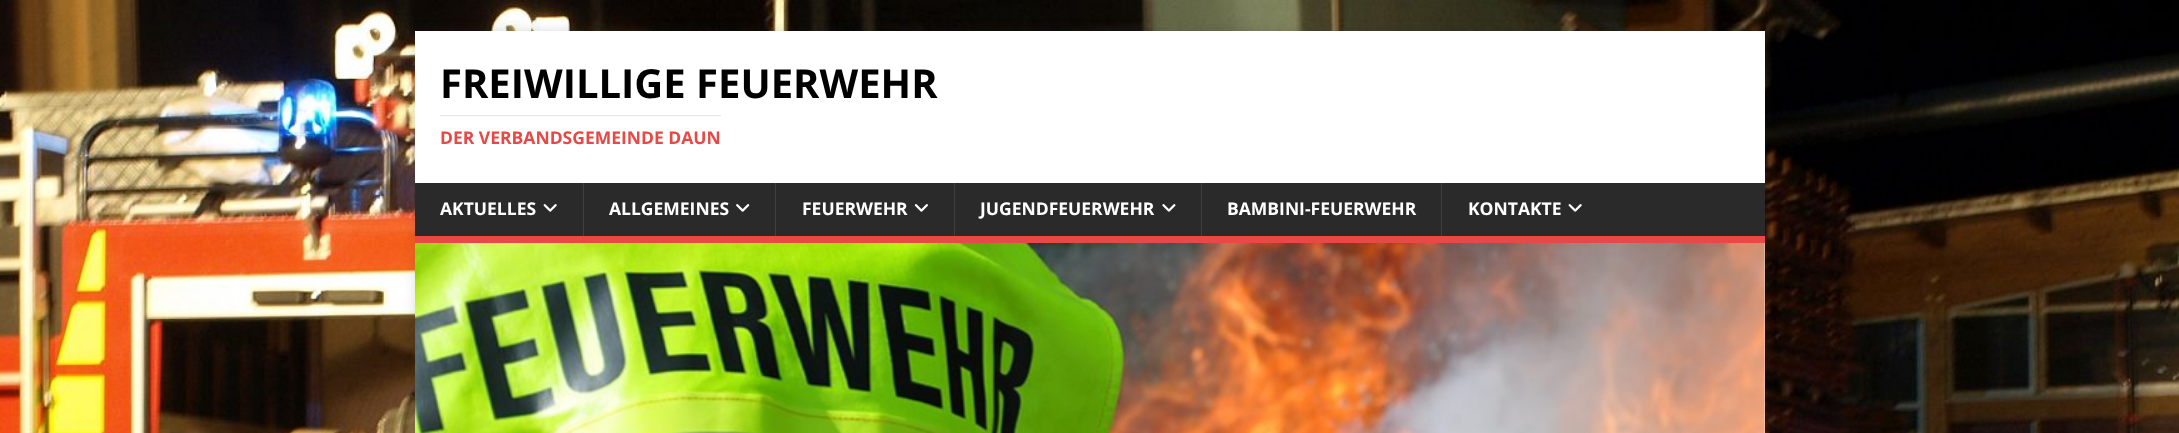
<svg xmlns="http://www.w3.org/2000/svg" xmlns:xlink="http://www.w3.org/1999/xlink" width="2179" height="433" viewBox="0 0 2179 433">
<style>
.cls-1{font:bold 40px Open Sans;fill:#000000}
.cls-2{font:bold 17.5px Open Sans;fill:#e64946}
.cls-3{font:bold 17.5px Open Sans;fill:#ffffff}
</style>
<rect width="100%" height="100%" fill="#ffffff"/>
<image xlink:href="image0.png" x="0" y="0" width="2179" height="433"/>
<rect fill="#323232" fill-opacity="0.17" filter="blur(6px)" x="415" y="31" width="1350" height="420"/>
<rect fill="#ffffff" x="415" y="31" width="1350" height="402"/>
<rect fill="#e5e5e5" x="440" y="115" width="281" height="1"/>
<rect fill="#2a2a2a" x="415" y="183" width="1350" height="53"/>
<rect fill="#e64946" x="415" y="236" width="1350" height="7"/>
<image xlink:href="image1.png" x="543" y="204" width="14" height="8"/>
<rect fill="#3f3f3f" x="583" y="183" width="1" height="53"/>
<image xlink:href="image2.png" x="736" y="204" width="14" height="8"/>
<rect fill="#3f3f3f" x="775" y="183" width="1" height="53"/>
<image xlink:href="image3.png" x="914" y="204" width="14" height="8"/>
<rect fill="#3f3f3f" x="954" y="183" width="1" height="53"/>
<image xlink:href="image4.png" x="1162" y="204" width="14" height="8"/>
<rect fill="#3f3f3f" x="1201" y="183" width="1" height="53"/>
<rect fill="#3f3f3f" x="1441" y="183" width="1" height="53"/>
<image xlink:href="image1.png" x="1568" y="204" width="14" height="8"/>
<image xlink:href="image5.png" x="415" y="243" width="1350" height="190"/>
<text class="cls-1" x="440" y="98">FREIWILLIGE FEUERWEHR</text>
<text class="cls-2" x="440" y="144">DER VERBANDSGEMEINDE DAUN</text>
<text class="cls-3" x="440" y="215">AKTUELLES</text>
<text class="cls-3" x="609" y="215">ALLGEMEINES</text>
<text class="cls-3" x="802" y="215">FEUERWEHR</text>
<text class="cls-3" x="980" y="215">JUGENDFEUERWEHR</text>
<text class="cls-3" x="1227" y="215">BAMBINI-FEUERWEHR</text>
<text class="cls-3" x="1468" y="215">KONTAKTE</text>
</svg>
